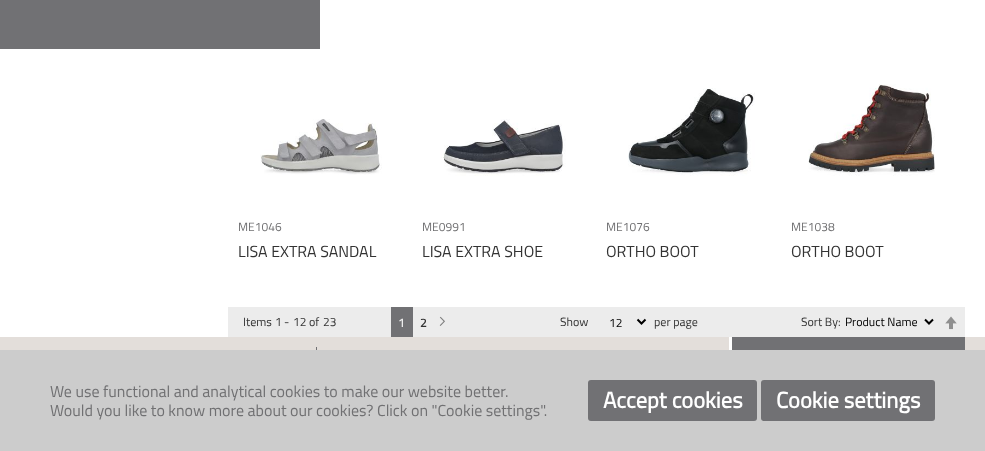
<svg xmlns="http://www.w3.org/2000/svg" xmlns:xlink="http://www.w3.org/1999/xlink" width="985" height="451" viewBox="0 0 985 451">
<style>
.cls-1{font:12px Titillium Web;fill:#707072}
.cls-2{font:16px Titillium Web;fill:#333333}
.cls-3{font:12px Titillium Web;fill:#333333}
.cls-4{font:bold 12px Titillium Web;fill:#ececec}
.cls-5{font:bold 12px Titillium Web;fill:#333333}
.cls-6{font:12px Titillium Web;fill:#000000}
.cls-7{font:16px Titillium Web;fill:#707072}
.cls-8{font:bold 22.5px Titillium Web;fill:#ffffff}
</style>
<rect width="100%" height="100%" fill="#ffffff"/>
<rect fill="#717174" x="0" y="0" width="320" height="49"/>
<image xlink:href="image0.png" x="260" y="119" width="122" height="56"/>
<image xlink:href="image1.png" x="441" y="119" width="125" height="57"/>
<image xlink:href="image2.png" x="628" y="88" width="127" height="88"/>
<image xlink:href="image3.png" x="808" y="84" width="127" height="92"/>
<rect fill="#ececec" x="228" y="307" width="737" height="30"/>
<rect fill="#717174" x="391" y="307" width="22" height="30"/>
<image xlink:href="image4.png" x="439" y="316" width="6" height="10"/>
<path fill="none" stroke="#000000" stroke-width="2" d="M637.5 319.5L641.5 323.5L645.5 319.5"/>
<path fill="none" stroke="#000000" stroke-width="2" d="M925 319.5L929 323.5L933 319.5"/>
<image xlink:href="image5.png" x="945" y="316" width="12" height="14"/>
<rect fill="#e3deda" x="0" y="337" width="985" height="13"/>
<rect fill="#717174" x="316" y="347" width="1" height="3"/>
<rect fill="#717174" x="732" y="337" width="233" height="13"/>
<rect fill="#ffffff" x="729" y="337" width="3" height="13"/>
<rect fill="#cccccc" x="0" y="350" width="985" height="101"/>
<rect fill="#717174" x="588" y="380" width="169" height="41" rx="3"/>
<rect fill="#717174" x="761" y="380" width="174" height="41" rx="3"/>
<text class="cls-1" x="238" y="231">ME1046</text>
<text class="cls-2" x="238" y="257">LISA EXTRA SANDAL</text>
<text class="cls-1" x="422" y="231">ME0991</text>
<text class="cls-2" x="422" y="257">LISA EXTRA SHOE</text>
<text class="cls-1" x="606" y="231">ME1076</text>
<text class="cls-2" x="606" y="257">ORTHO BOOT</text>
<text class="cls-1" x="791" y="231">ME1038</text>
<text class="cls-2" x="791" y="257">ORTHO BOOT</text>
<text class="cls-3" x="243" y="326">Items</text>
<text class="cls-3" x="275" y="326">1</text>
<text class="cls-3" x="284" y="326">-</text>
<text class="cls-3" x="293" y="326">12</text>
<text class="cls-3" x="309" y="326">of</text>
<text class="cls-3" x="323" y="326">23</text>
<text class="cls-4" x="398" y="327">1</text>
<text class="cls-5" x="420" y="327">2</text>
<text class="cls-3" x="560" y="326">Show</text>
<text class="cls-6" x="609" y="327">12</text>
<text class="cls-3" x="654" y="326">per page</text>
<text class="cls-3" x="801" y="326">Sort By:</text>
<text class="cls-6" x="845" y="326">Product Name</text>
<text class="cls-7"><tspan x="50" y="397">We use functional and analytical cookies to make our website better.</tspan><tspan x="50" y="416">Would you like to know more about our cookies? Click on "Cookie settings".</tspan></text>
<text class="cls-8" x="603" y="408">Accept cookies</text>
<text class="cls-8" x="776" y="408">Cookie settings</text>
</svg>
